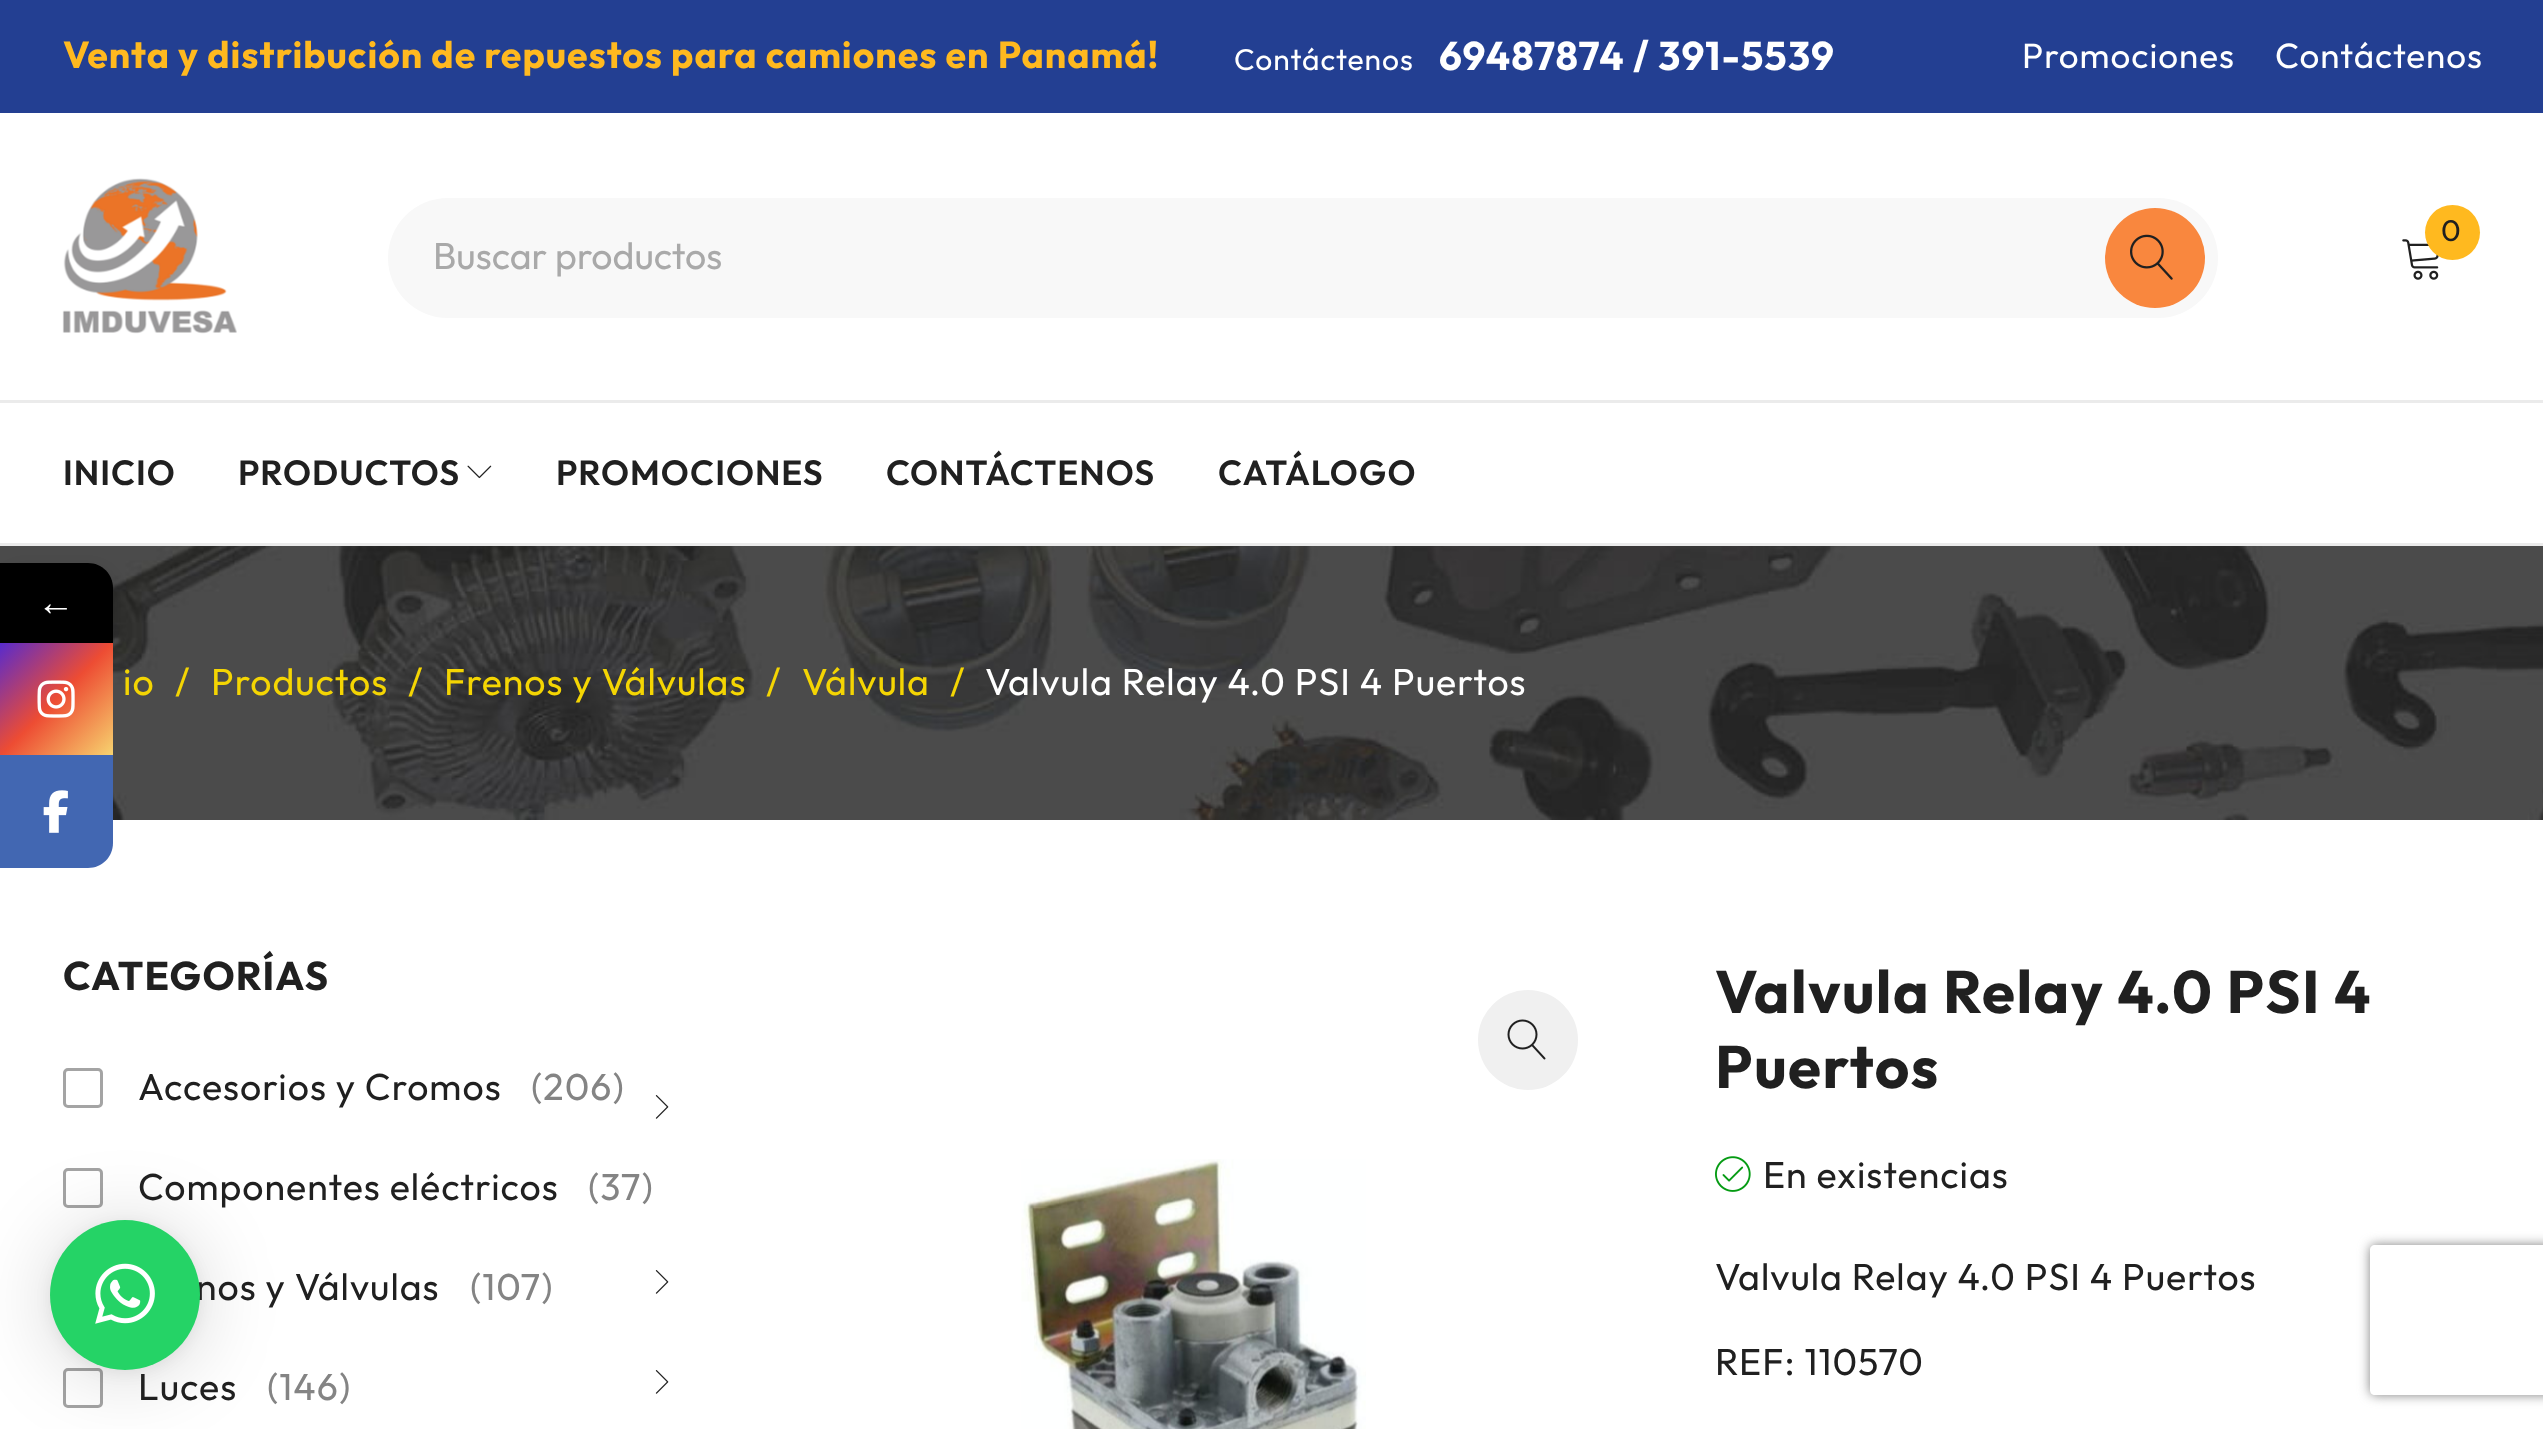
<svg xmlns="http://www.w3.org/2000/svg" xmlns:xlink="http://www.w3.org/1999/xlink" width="2543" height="1429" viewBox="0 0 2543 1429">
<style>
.cls-1{font:37.5px Liberation Sans;letter-spacing:1px;fill:#ffffff}
.cls-2{font:bold 37.5px Outfit;letter-spacing:1px;fill:#ffb91f}
.cls-3{font:30px Outfit;letter-spacing:1px;fill:#ffffff}
.cls-4{font:bold 40px Outfit;letter-spacing:1px;fill:#ffffff}
.cls-5{font:35px Outfit;letter-spacing:1px;fill:#ffffff}
.cls-6{font:30px Outfit;letter-spacing:1px;fill:#202020}
.cls-7{font:37.5px Outfit;fill:#a9a9a9}
.cls-8{font:600 35px Outfit;letter-spacing:1px;fill:#202020}
.cls-9{font:37.5px Outfit;letter-spacing:1px;fill:#f4d503}
.cls-10{font:37.5px Outfit;letter-spacing:1px;fill:#ffffff}
.cls-11{font:bold 40px Outfit;letter-spacing:1.1px;fill:#202020}
.cls-12{font:37.5px Outfit;letter-spacing:1px;fill:#202020}
.cls-13{font:37.5px Outfit;letter-spacing:1px;fill:#848484}
.cls-14{font:bold 60px Outfit;letter-spacing:1.5px;fill:#202020}
</style>
<defs>
<linearGradient id="g1" gradientUnits="userSpaceOnUse" x1="0" y1="643" x2="113" y2="755"><stop offset="0" stop-color="#582bcd"/><stop offset="0.5" stop-color="#ed4c33"/><stop offset="1" stop-color="#f7d36f"/></linearGradient>
<clipPath id="clip1"><path d="M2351 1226H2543V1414H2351ZM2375 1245H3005C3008 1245 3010 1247 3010 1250V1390C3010 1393 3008 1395 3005 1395H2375C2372 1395 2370 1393 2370 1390V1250C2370 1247 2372 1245 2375 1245Z" clip-rule="evenodd"/></clipPath>
</defs>
<rect width="100%" height="100%" fill="#ffffff"/>
<image xlink:href="image6.png" x="0" y="546" width="2543" height="274"/>
<rect fill="#000000" fill-opacity="0.16" filter="blur(7.5px)" x="0" y="570" width="113" height="80" rx="25"/>
<path fill="#000000" d="M0 563H88C102 563 113 574 113 588V643H0Z"/>
<rect fill="url(#g1)" x="0" y="643" width="113" height="112"/>
<image xlink:href="image0.png" x="37" y="680" width="38" height="38"/>
<path fill="#4267b2" d="M0 755H113V843C113 857 102 868 88 868H0Z"/>
<image xlink:href="image1.png" x="43" y="790" width="25" height="43"/>
<rect fill="#233f92" x="0" y="0" width="2543" height="113"/>
<rect fill="#ebebeb" x="0" y="400" width="2543" height="3"/>
<image xlink:href="image2.png" x="62" y="178" width="175" height="156"/>
<image xlink:href="image3.png" x="2402" y="239" width="37" height="41"/>
<circle fill="#ffb91f" cx="2452.5" cy="232.5" r="27.5"/>
<rect fill="#f8f8f8" x="388" y="198" width="1830" height="120" rx="60"/>
<circle fill="#f9873e" cx="2155" cy="258" r="50"/>
<image xlink:href="image4.png" x="2130" y="234" width="43" height="46"/>
<rect fill="#ebebeb" x="0" y="543" width="2543" height="3"/>
<image xlink:href="image5.png" x="467" y="465" width="25" height="14"/>
<rect fill="none" stroke="#a4a4a4" stroke-width="3" x="64.5" y="1069.5" width="37" height="37" rx="3.5"/>
<image xlink:href="image7.png" x="655" y="1095" width="14" height="24"/>
<rect fill="none" stroke="#a4a4a4" stroke-width="3" x="64.5" y="1169.5" width="37" height="37" rx="3.5"/>
<image xlink:href="image7.png" x="655" y="1270" width="14" height="24"/>
<rect fill="none" stroke="#a4a4a4" stroke-width="3" x="64.5" y="1369.5" width="37" height="37" rx="3.5"/>
<image xlink:href="image7.png" x="655" y="1370" width="14" height="24"/>
<circle fill="#f0f0f0" cx="1528" cy="1040" r="50"/>
<image xlink:href="image8.png" x="1507" y="1019" width="39" height="41"/>
<image xlink:href="image9.png" x="1021" y="1159" width="345" height="270"/>
<image xlink:href="image10.png" x="1715" y="1156" width="36" height="36"/>
<rect fill="#000000" fill-opacity="0.16" filter="blur(40px)" x="50" y="1225" width="150" height="150" rx="75"/>
<rect fill="#000000" fill-opacity="0.06" filter="blur(7.5px)" x="50" y="1223" width="150" height="150" rx="75"/>
<g clip-path="url(#clip1)">
<rect fill="#808080" filter="blur(6px)" x="2370" y="1245" width="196" height="150" rx="5"/>
</g>
<text class="cls-1" x="37" y="615">←</text>
<text class="cls-2" x="63" y="68">Venta y distribución de repuestos para camiones en Panamá!</text>
<text class="cls-3" x="1234" y="70">Contáctenos</text>
<text class="cls-4" x="1439" y="70">69487874 / 391-5539</text>
<text class="cls-5" x="2022" y="68">Promociones</text>
<text class="cls-5" x="2275" y="68">Contáctenos</text>
<text class="cls-6" x="2441" y="241">0</text>
<text class="cls-7" x="433" y="269">Buscar productos</text>
<text class="cls-8" x="63" y="485">INICIO</text>
<text class="cls-8" x="238" y="485">PRODUCTOS</text>
<text class="cls-8" x="556" y="485">PROMOCIONES</text>
<text class="cls-8" x="886" y="485">CONTÁCTENOS</text>
<text class="cls-8" x="1218" y="485">CATÁLOGO</text>
<text class="cls-9" x="123" y="695">io</text>
<text class="cls-9" x="175" y="695">/</text>
<text class="cls-9" x="211" y="695">Productos</text>
<text class="cls-9" x="408" y="695">/</text>
<text class="cls-9" x="444" y="695">Frenos y Válvulas</text>
<text class="cls-9" x="766" y="695">/</text>
<text class="cls-9" x="802" y="695">Válvula</text>
<text class="cls-9" x="950" y="695">/</text>
<text class="cls-10" x="985" y="695">Valvula Relay 4.0 PSI 4 Puertos</text>
<text class="cls-11" x="63" y="990">CATEGORÍAS</text>
<text class="cls-12" x="138" y="1100">Accesorios y Cromos</text>
<text class="cls-13" x="531" y="1100">(206)</text>
<text class="cls-12" x="138" y="1200">Componentes eléctricos</text>
<text class="cls-13" x="588" y="1200">(37)</text>
<text class="cls-12" x="196" y="1300">nos y Válvulas</text>
<text class="cls-13" x="470" y="1300">(107)</text>
<text class="cls-12" x="138" y="1400">Luces</text>
<text class="cls-13" x="267" y="1400">(146)</text>
<text class="cls-14"><tspan x="1715" y="1013">Valvula Relay 4.0 PSI 4</tspan><tspan x="1715" y="1088">Puertos</tspan></text>
<text class="cls-12" x="1763" y="1188">En existencias</text>
<text class="cls-12" x="1715" y="1290">Valvula Relay 4.0 PSI 4 Puertos</text>
<text class="cls-12" x="1715" y="1375">REF: 110570</text>
<circle fill="#25d366" cx="125" cy="1295" r="75"/>
<image xlink:href="image11.png" x="95" y="1263" width="60" height="61"/>
</svg>
